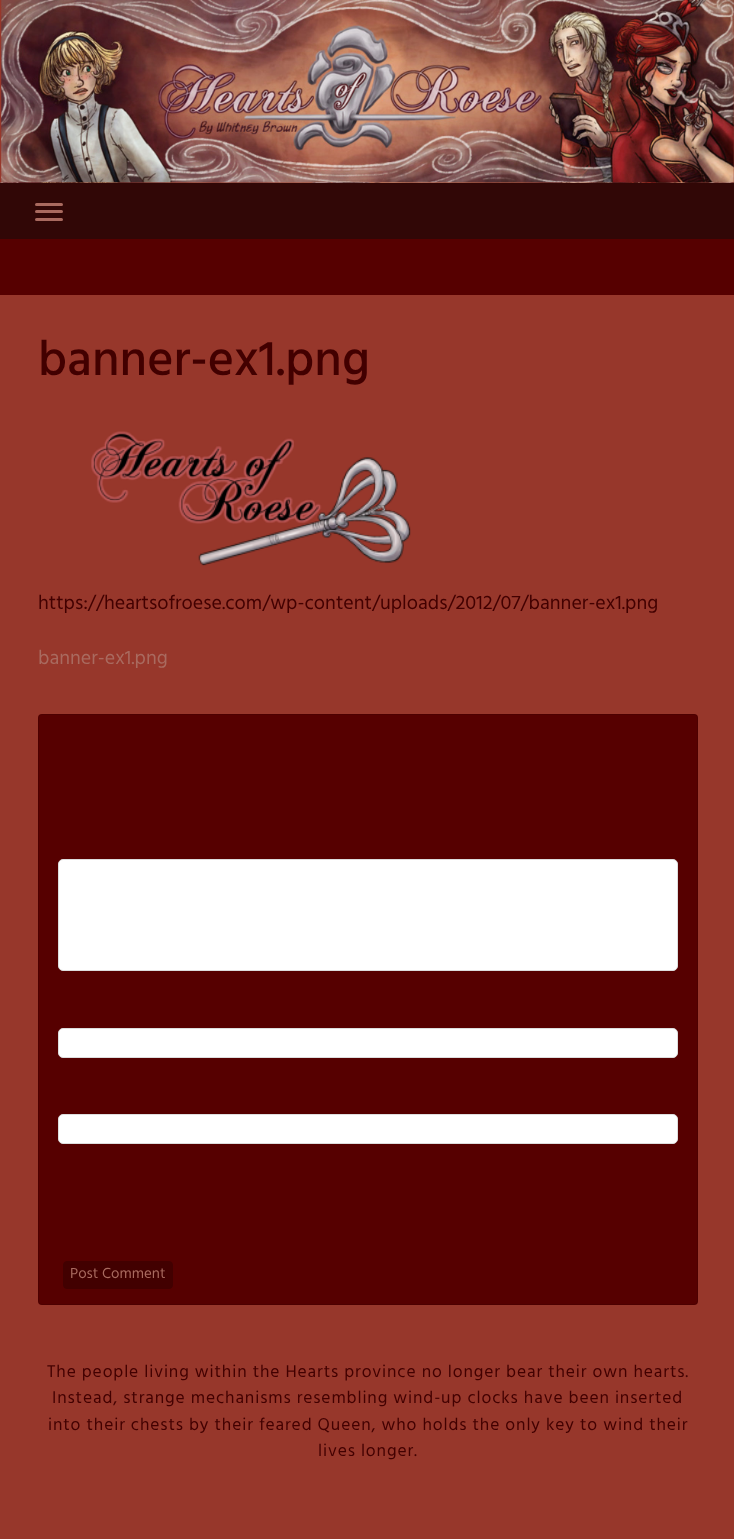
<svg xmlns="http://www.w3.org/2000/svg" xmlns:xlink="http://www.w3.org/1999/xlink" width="734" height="1539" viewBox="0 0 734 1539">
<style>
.cls-1{font:500 50px Hind;fill:#420000}
.cls-2{font:20px Hind;fill:#420000}
.cls-3{font:20px Hind;fill:#a96a5f}
.cls-4{font:15px Hind;fill:#a96a5f}
.cls-5{font:17.5px Hind;letter-spacing:0.88px;fill:#420000}
</style>
<rect width="100%" height="100%" fill="#560000"/>
<rect fill="#97372b" x="0" y="0" width="734" height="183"/>
<image xlink:href="image0.png" x="1" y="0" width="733" height="183"/>
<image xlink:href="image1.png" x="0" y="182" width="734" height="1"/>
<rect fill="#310706" x="0" y="183" width="734" height="56"/>
<rect fill="#a96a5f" x="35" y="203" width="28" height="3" rx="1.5"/>
<rect fill="#a96a5f" x="35" y="210" width="28" height="3" rx="1.5"/>
<rect fill="#a96a5f" x="35" y="218" width="28" height="3" rx="1.5"/>
<rect fill="#97372b" x="0" y="295" width="734" height="1244"/>
<image xlink:href="image2.png" x="91" y="431" width="320" height="135"/>
<rect fill="#560000" x="38" y="714" width="660" height="591" rx="4"/>
<rect fill="none" stroke="#000000" stroke-opacity="0.1" x="38.5" y="714.5" width="659" height="590" rx="3.5"/>
<rect fill="#ffffff" stroke="#dddddd" x="58.5" y="859.5" width="619" height="111" rx="4.5"/>
<rect fill="#ffffff" stroke="#dddddd" x="58.5" y="1028.5" width="619" height="29" rx="4.5"/>
<rect fill="#ffffff" stroke="#dddddd" x="58.5" y="1114.5" width="619" height="29" rx="4.5"/>
<rect fill="#420000" stroke="#420000" x="63.5" y="1261.5" width="109" height="27" rx="3.5"/>
<text class="cls-1" x="38" y="375">banner-ex1.png</text>
<text class="cls-2" x="38" y="609">https://heartsofroese.com/wp-content/uploads/2012/07/banner-ex1.png</text>
<text class="cls-3" x="38" y="664">banner-ex1.png</text>
<text class="cls-4" x="70" y="1278">Post Comment</text>
<text class="cls-5" x="47" y="1377">The people living within the Hearts province no longer bear their own hearts.</text>
<text class="cls-5" x="52" y="1403">Instead, strange mechanisms resembling wind-up clocks have been inserted</text>
<text class="cls-5" x="48" y="1430">into their chests by their feared Queen, who holds the only key to wind their</text>
<text class="cls-5" x="318" y="1456">lives longer.</text>
</svg>
